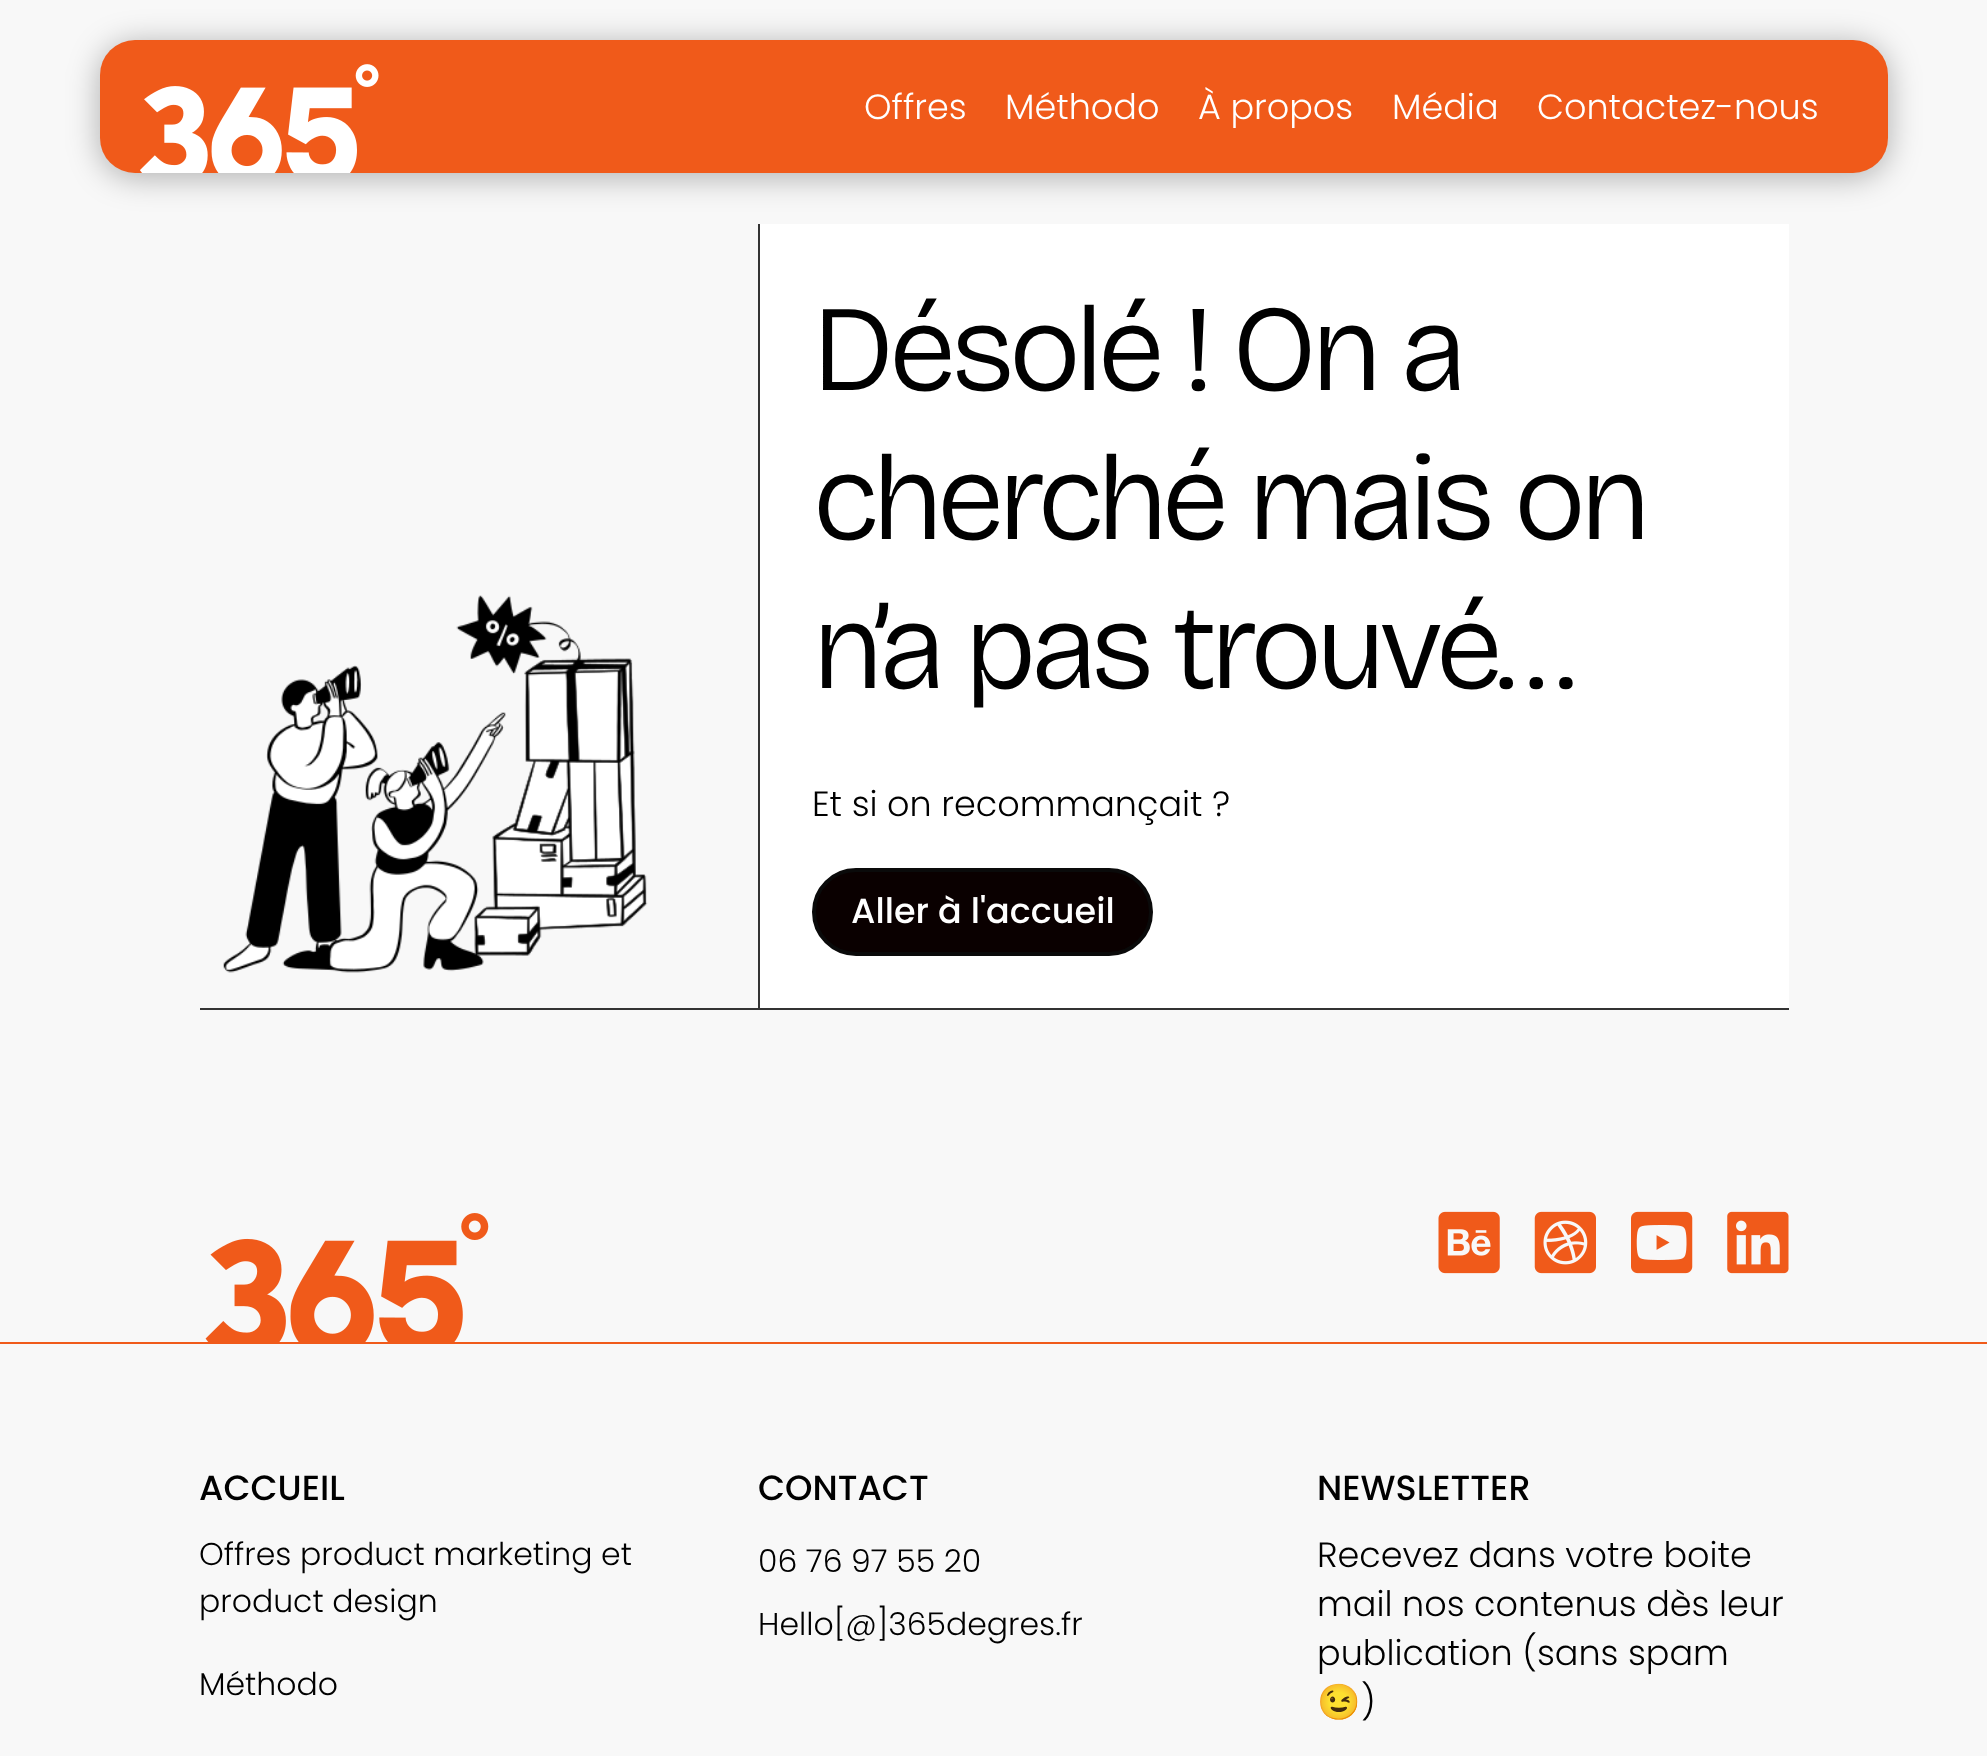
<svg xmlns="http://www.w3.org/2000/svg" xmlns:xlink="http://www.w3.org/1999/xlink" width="1987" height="1756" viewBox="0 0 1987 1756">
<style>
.cls-1{font:300 35px Poppins;fill:#ffffff}
.cls-2{font:300 122.5px Bricolage Grotesque;letter-spacing:-7px;fill:#000000}
.cls-3{font:300 35px Poppins;fill:#000000}
.cls-4{font:500 35px Poppins;fill:#ffffff}
.cls-5{font:500 35px Poppins;fill:#000000}
.cls-6{font:300 31.5px Poppins;fill:#000000}
.cls-7{font:35px Noto Color Emoji;fill:#000000}
</style>
<rect width="100%" height="100%" fill="#f8f8f8"/>
<rect fill="#ffffff" x="760" y="224" width="1029" height="784"/>
<rect fill="#333333" x="758" y="224" width="2" height="784"/>
<rect fill="#000000" fill-opacity="0.3" filter="blur(16px)" x="100" y="44" width="1788" height="133" rx="35"/>
<rect fill="#f05a1a" x="100" y="40" width="1788" height="133" rx="35"/>
<image xlink:href="image0.png" x="140" y="64" width="239" height="109"/>
<rect fill="#333333" x="200" y="1008" width="1589" height="2"/>
<image xlink:href="image1.png" x="223" y="595" width="425" height="378"/>
<rect fill="#0a0000" stroke="#0a0a0a" stroke-width="4" x="814" y="870" width="337" height="84" rx="42"/>
<image xlink:href="image2.png" x="205" y="1213" width="284" height="129"/>
<image xlink:href="image3.png" x="1438" y="1211" width="62" height="63"/>
<image xlink:href="image4.png" x="1534" y="1211" width="62" height="63"/>
<image xlink:href="image5.png" x="1631" y="1211" width="62" height="63"/>
<image xlink:href="image6.png" x="1727" y="1211" width="62" height="63"/>
<rect fill="#f05a1a" x="0" y="1342" width="1987" height="2"/>
<text class="cls-1" x="864" y="119">Offres</text>
<text class="cls-1" x="1005" y="119">Méthodo</text>
<text class="cls-1" x="1198" y="119">À propos</text>
<text class="cls-1" x="1392" y="119">Média</text>
<text class="cls-1" x="1537" y="119">Contactez-nous</text>
<text class="cls-2"><tspan x="812" y="390">Désolé ! On a</tspan><tspan x="812" y="539">cherché mais on</tspan><tspan x="812" y="688">n’a pas trouvé…</tspan></text>
<text class="cls-3" x="812" y="816">Et si on recommançait ?</text>
<text class="cls-4" x="851" y="923">Aller à l'accueil</text>
<text class="cls-5" x="199" y="1500">ACCUEIL</text>
<text class="cls-6"><tspan x="199" y="1565">Offres product marketing et</tspan><tspan x="199" y="1612">product design</tspan></text>
<text class="cls-6" x="199" y="1695">Méthodo</text>
<text class="cls-5" x="758" y="1500">CONTACT</text>
<text class="cls-6" x="758" y="1572">06 76 97 55 20</text>
<text class="cls-6" x="758" y="1635">Hello[@]365degres.fr</text>
<text class="cls-5" x="1317" y="1500">NEWSLETTER</text>
<text class="cls-3"><tspan x="1317" y="1567">Recevez dans votre boite</tspan><tspan x="1317" y="1616">mail nos contenus dès leur</tspan><tspan x="1317" y="1665">publication (sans spam</tspan></text>
<text class="cls-7" x="1317" y="1714">😉</text>
<text class="cls-3" x="1361" y="1714">)</text>
</svg>
